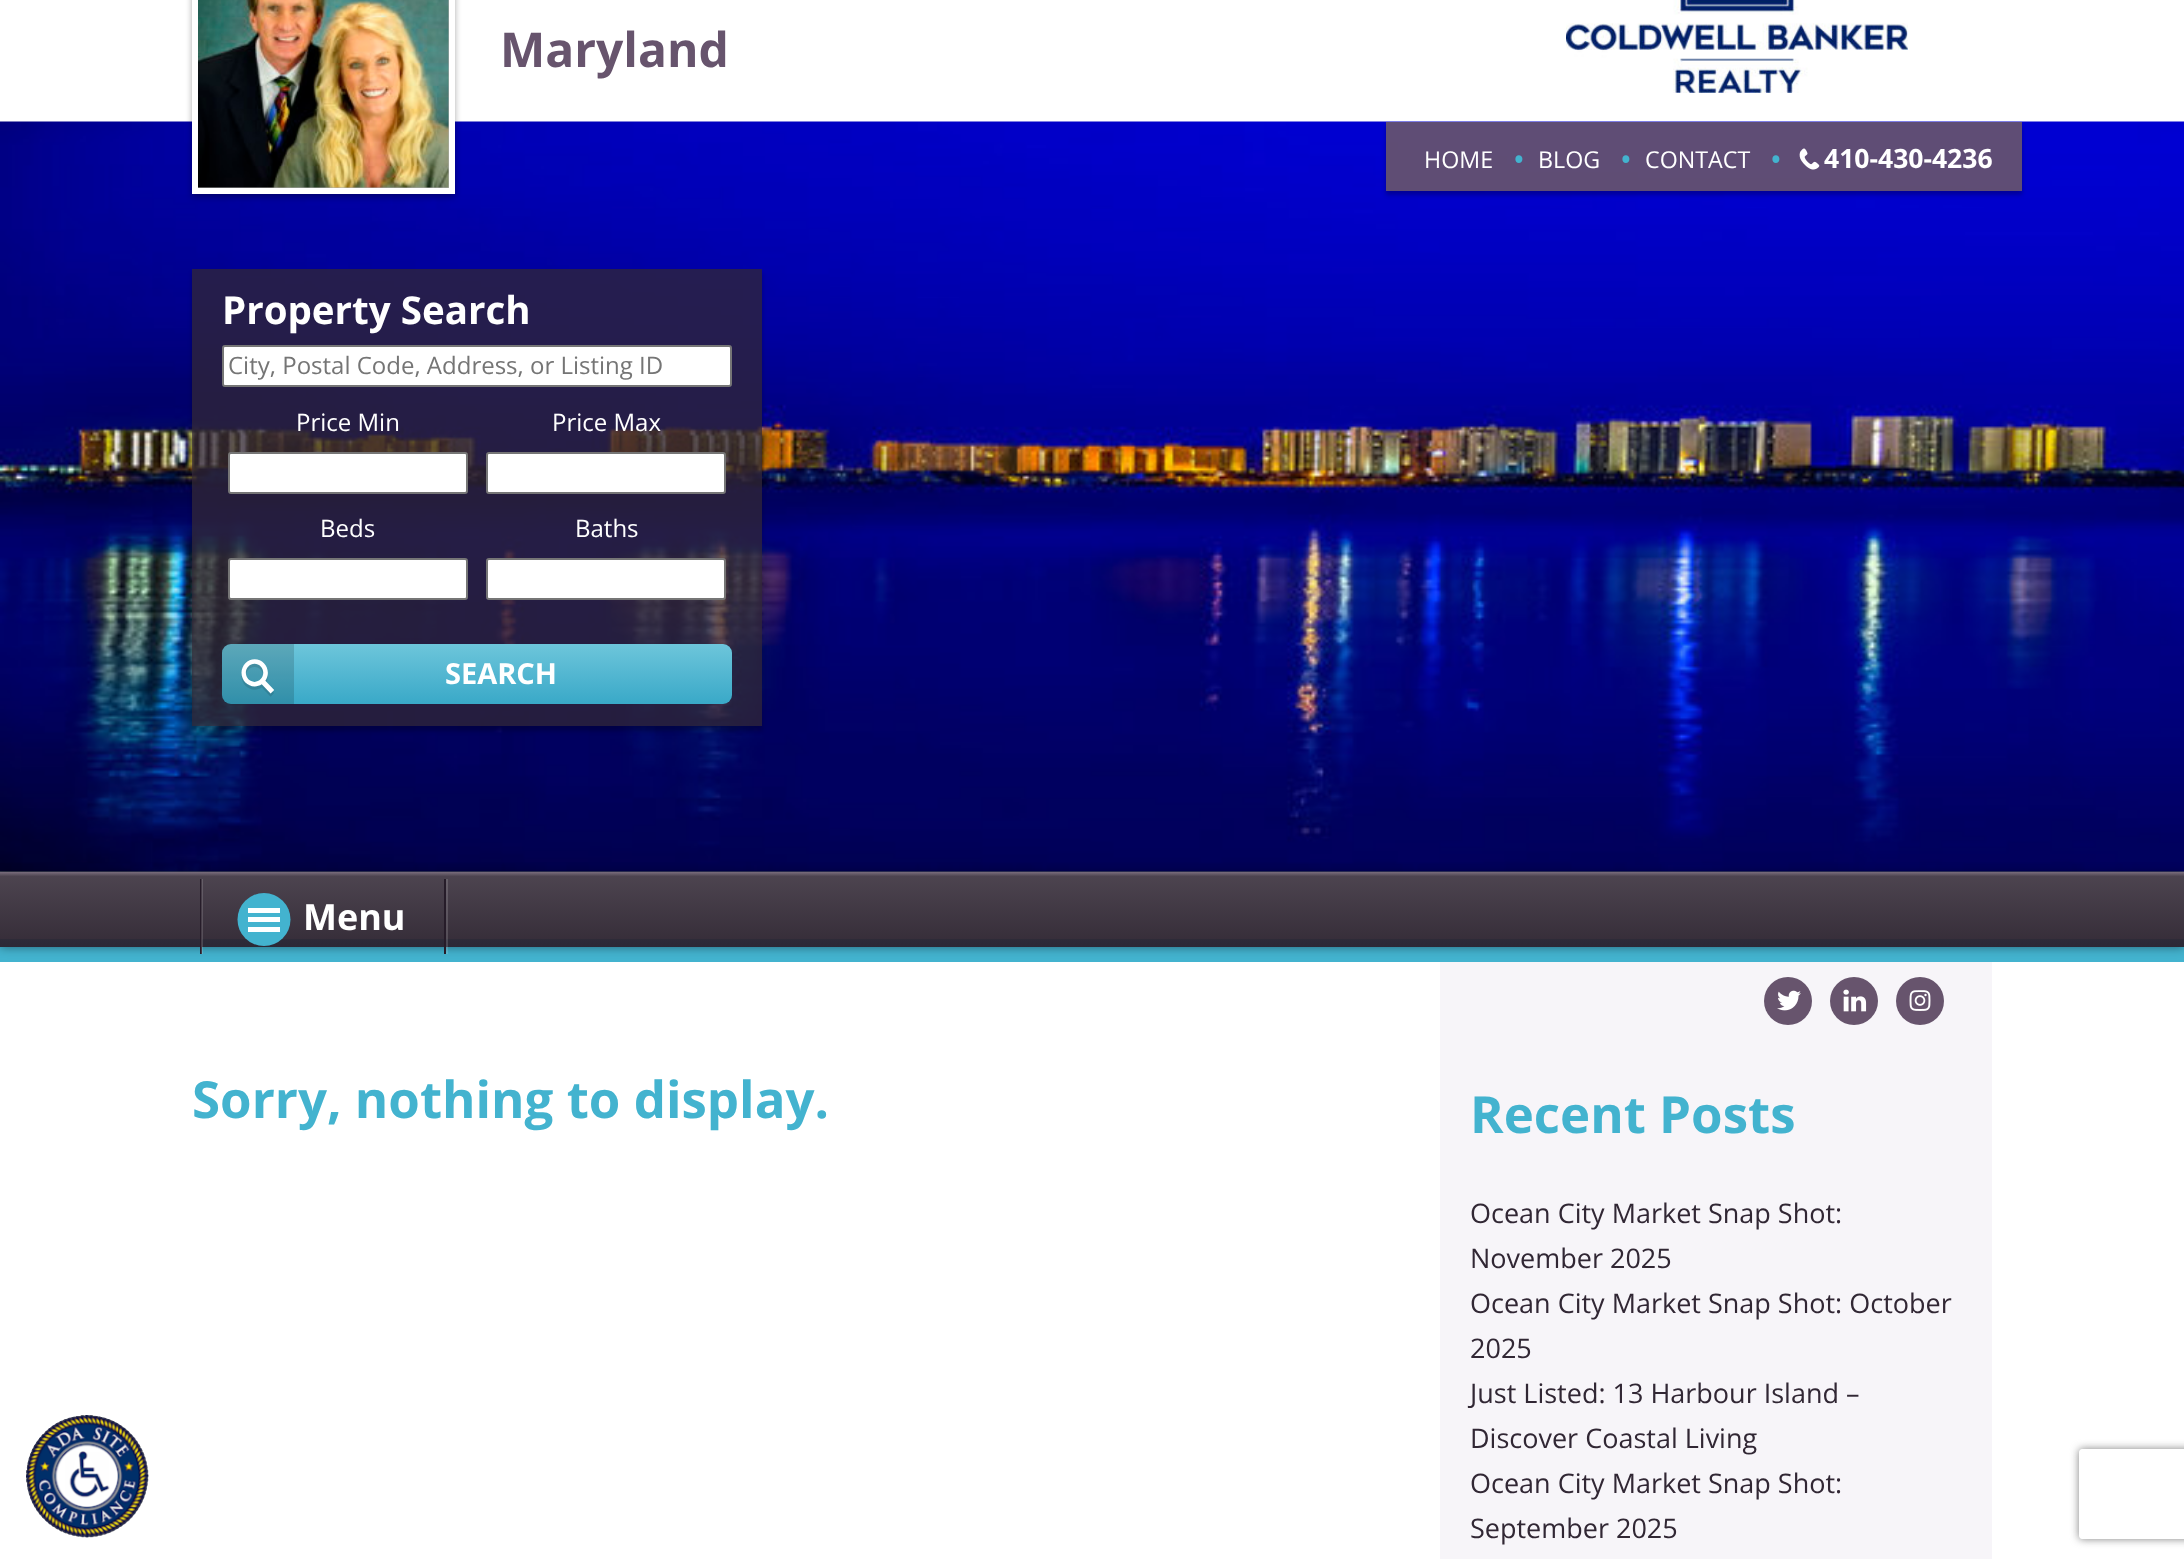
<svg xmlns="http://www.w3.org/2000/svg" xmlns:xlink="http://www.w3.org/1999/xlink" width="2184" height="1559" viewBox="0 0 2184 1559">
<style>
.cls-1{font:bold 48px Open Sans;fill:#67546d}
.cls-2{font:23.25px Open Sans;fill:#ffffff}
.cls-3{font:60px Open Sans;fill:#43b3cf}
.cls-4{font:bold 26.5px Open Sans;fill:#ffffff}
.cls-5{font:bold 38.5px Open Sans;fill:#ffffff}
.cls-6{font:24px Open Sans;fill:#757575}
.cls-7{font:24px Open Sans;fill:#ffffff}
.cls-8{font:bold 29px Open Sans;fill:#ffffff}
.cls-9{font:bold 36px Open Sans;fill:#ffffff}
.cls-10{font:bold 51px Open Sans;fill:#43b3cf}
.cls-11{font:27px Open Sans;fill:#312734}
</style>
<defs>
<clipPath id="clip1"><path d="M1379 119H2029V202H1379ZM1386 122H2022V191H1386Z" clip-rule="evenodd"/></clipPath>
<clipPath id="clip2"><path d="M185 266H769V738H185ZM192 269H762V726H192Z" clip-rule="evenodd"/></clipPath>
<linearGradient id="g1" gradientUnits="userSpaceOnUse" x1="477" y1="643" x2="477" y2="703"><stop offset="0" stop-color="#6ec6db"/><stop offset="1" stop-color="#3aa9c8"/></linearGradient>
<clipPath id="clip3"><path d="M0 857H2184V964H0ZM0 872H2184V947H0Z" clip-rule="evenodd"/></clipPath>
<linearGradient id="g2" gradientUnits="userSpaceOnUse" x1="1092" y1="871" x2="1092" y2="947"><stop offset="0" stop-color="#7e7081" stop-opacity="0.95"/><stop offset="0.07" stop-color="#433a46" stop-opacity="0.95"/><stop offset="1" stop-color="#2a212d" stop-opacity="0.95"/></linearGradient>
<clipPath id="clip4"><path d="M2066 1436H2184V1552H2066ZM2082 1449H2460C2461.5 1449 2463 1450.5 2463 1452V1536C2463 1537.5 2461.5 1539 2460 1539H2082C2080.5 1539 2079 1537.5 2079 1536V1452C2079 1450.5 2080.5 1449 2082 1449Z" clip-rule="evenodd"/></clipPath>
</defs>
<rect width="100%" height="100%" fill="#ffffff"/>
<image xlink:href="image0.png" x="26" y="1415" width="123" height="123"/>
<rect fill="#5c6467" x="0" y="871" width="2184" height="1"/>
<image xlink:href="image3.png" x="0" y="121" width="2184" height="751"/>
<rect fill="#ffffff" x="198" y="121" width="251" height="67"/>
<rect fill="#000000" fill-opacity="0.33" filter="blur(3px)" x="192" y="-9" width="263" height="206"/>
<rect fill="none" stroke="#ffffff" stroke-width="6" x="195" y="-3" width="257" height="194"/>
<image xlink:href="image1.png" x="198" y="0" width="251" height="188"/>
<image xlink:href="image2.png" x="1566" y="0" width="342" height="93"/>
<g clip-path="url(#clip1)">
<rect fill="#000000" fill-opacity="0.25" filter="blur(2px)" x="1386" y="126" width="636" height="69"/>
</g>
<rect fill="#67546d" fill-opacity="0.92" x="1386" y="122" width="636" height="69"/>
<image xlink:href="image4.png" x="1799" y="148" width="21" height="22"/>
<g clip-path="url(#clip2)">
<rect fill="#000000" fill-opacity="0.25" filter="blur(2px)" x="192" y="273" width="570" height="458"/>
</g>
<rect fill="#312734" fill-opacity="0.75" x="192" y="269" width="570" height="457"/>
<rect fill="#ffffff" stroke="#767676" stroke-width="2" x="223" y="346" width="508" height="40" rx="2"/>
<rect fill="#ffffff" stroke="#767676" stroke-width="2" x="229" y="453" width="238" height="40" rx="2"/>
<rect fill="#ffffff" stroke="#767676" stroke-width="2" x="487" y="453" width="238" height="40" rx="2"/>
<rect fill="#ffffff" stroke="#767676" stroke-width="2" x="229" y="559" width="238" height="40" rx="2"/>
<rect fill="#ffffff" stroke="#767676" stroke-width="2" x="487" y="559" width="238" height="40" rx="2"/>
<rect fill="url(#g1)" x="222" y="644" width="510" height="60" rx="9"/>
<path fill="#000000" fill-opacity="0.15" d="M231 644H294V704H231C226 704 222 700 222 695V653C222 648 226 644 231 644Z"/>
<image xlink:href="image5.png" x="241" y="659" width="33" height="38"/>
<rect fill="#43b3cf" x="0" y="939" width="2184" height="23"/>
<rect fill="#f7f5f9" x="1440" y="962" width="552" height="597"/>
<g clip-path="url(#clip3)">
<rect fill="#000000" fill-opacity="0.38" filter="blur(5px)" x="0" y="873" width="2184" height="75"/>
</g>
<rect fill="url(#g2)" x="0" y="872" width="2184" height="75"/>
<rect fill="#261c29" x="444" y="879" width="2" height="75"/>
<rect fill="#261c29" x="200" y="879" width="2" height="75"/>
<rect fill="#ffffff" fill-opacity="0.15" x="201" y="879" width="2" height="75"/>
<circle fill="#43b3cf" cx="264" cy="919.5" r="26.5"/>
<rect fill="#ffffff" x="248" y="908" width="32" height="5"/>
<rect fill="#ffffff" x="248" y="917" width="32" height="5"/>
<rect fill="#ffffff" x="248" y="927" width="32" height="5"/>
<rect fill="#ffffff" fill-opacity="0.15" x="446" y="879" width="2" height="75"/>
<circle fill="#67546d" cx="1788" cy="1001" r="24"/>
<image xlink:href="image6.png" x="1777" y="990" width="24" height="21"/>
<circle fill="#67546d" cx="1854" cy="1001" r="24"/>
<image xlink:href="image7.png" x="1843" y="989" width="24" height="23"/>
<circle fill="#67546d" cx="1920" cy="1001" r="24"/>
<image xlink:href="image8.png" x="1909" y="990" width="22" height="21"/>
<image xlink:href="image9.png" x="26" y="1415" width="123" height="123"/>
<image xlink:href="image10.png" x="26" y="1415" width="123" height="123"/>
<g clip-path="url(#clip4)">
<rect fill="#808080" filter="blur(4px)" x="2079" y="1449" width="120" height="90" rx="3"/>
</g>
<text class="cls-1" x="500" y="67">Maryland</text>
<text class="cls-2" x="1424" y="168">HOME</text>
<text class="cls-3" x="1511" y="180">·</text>
<text class="cls-2" x="1538" y="168">BLOG</text>
<text class="cls-3" x="1618" y="180">·</text>
<text class="cls-2" x="1645" y="168">CONTACT</text>
<text class="cls-3" x="1768" y="180">·</text>
<text class="cls-4" x="1824" y="168">410-430-4236</text>
<text class="cls-5" x="222" y="324">Property Search</text>
<text class="cls-6" x="228" y="374">City, Postal Code, Address, or Listing ID</text>
<text class="cls-7" x="296" y="431">Price Min</text>
<text class="cls-7" x="552" y="431">Price Max</text>
<text class="cls-7" x="320" y="537">Beds</text>
<text class="cls-7" x="575" y="537">Baths</text>
<text class="cls-8" x="445" y="684">SEARCH</text>
<text class="cls-9" x="303" y="930">Menu</text>
<text class="cls-10" x="192" y="1118">Sorry, nothing to display.</text>
<text class="cls-10" x="1470" y="1133">Recent Posts</text>
<text class="cls-11"><tspan x="1470" y="1223">Ocean City Market Snap Shot:</tspan><tspan x="1470" y="1268">November 2025</tspan><tspan x="1470" y="1313">Ocean City Market Snap Shot: October</tspan><tspan x="1470" y="1358">2025</tspan><tspan x="1470" y="1403">Just Listed: 13 Harbour Island –</tspan><tspan x="1470" y="1448">Discover Coastal Living</tspan><tspan x="1470" y="1493">Ocean City Market Snap Shot:</tspan><tspan x="1470" y="1538">September 2025</tspan></text>
</svg>
